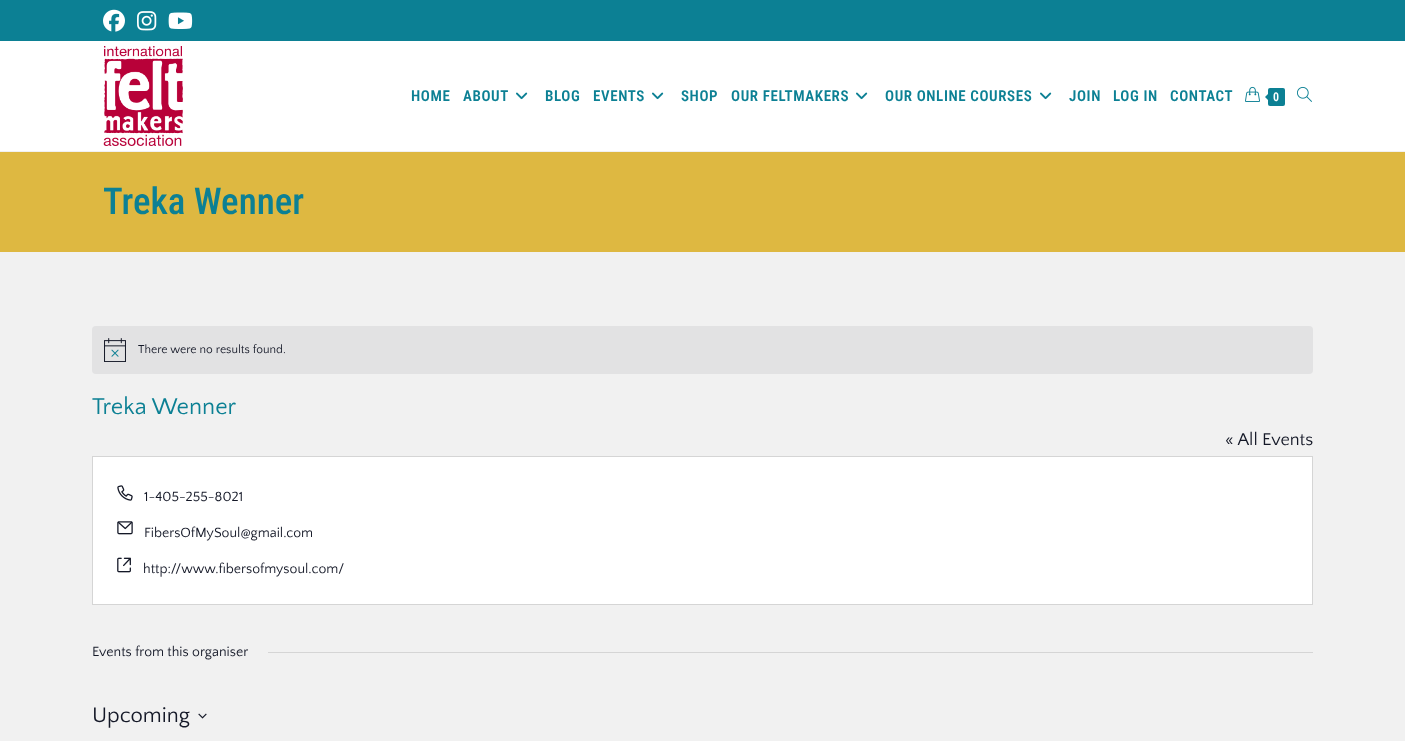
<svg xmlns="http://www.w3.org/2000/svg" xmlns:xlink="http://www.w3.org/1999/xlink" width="1405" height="741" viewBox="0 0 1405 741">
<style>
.cls-1{font:600 15px Roboto Condensed;letter-spacing:0.6px;fill:#0c8094}
.cls-2{font:600 12px Roboto Condensed;fill:#ffffff}
.cls-3{font:500 37px Roboto Condensed;fill:#0c8094}
.cls-4{font:12px Quattrocento Sans;fill:#141827}
.cls-5{font:24px Quattrocento Sans;fill:#0c8094}
.cls-6{font:18px Quattrocento Sans;fill:#141827}
.cls-7{font:14px Quattrocento Sans;fill:#141827}
.cls-8{font:22px Quattrocento Sans;fill:#141827}
</style>
<rect width="100%" height="100%" fill="#f1f1f1"/>
<rect fill="#0c8094" x="0" y="0" width="1405" height="41"/>
<image xlink:href="image0.png" x="103" y="9" width="22" height="23"/>
<image xlink:href="image1.png" x="137" y="11" width="20" height="20"/>
<image xlink:href="image2.png" x="168" y="12" width="25" height="17"/>
<rect fill="#ffffff" x="0" y="41" width="1405" height="110"/>
<image xlink:href="image3.png" x="103" y="46" width="80" height="100"/>
<image xlink:href="image4.png" x="516" y="92" width="12" height="8"/>
<image xlink:href="image4.png" x="652" y="92" width="12" height="8"/>
<image xlink:href="image4.png" x="856" y="92" width="12" height="8"/>
<image xlink:href="image4.png" x="1040" y="92" width="12" height="8"/>
<image xlink:href="image5.png" x="1245" y="86" width="15" height="16"/>
<rect fill="#0c8094" x="1268" y="88" width="17" height="18" rx="2"/>
<path fill="#0c8094" d="M1270 92V102L1265 97Z"/>
<image xlink:href="image6.png" x="1297" y="86" width="15" height="16"/>
<rect fill="#deb841" x="0" y="152" width="1405" height="100"/>
<rect fill="#e2e2e3" x="92" y="326" width="1221" height="48" rx="4"/>
<image xlink:href="image7.png" x="104" y="338" width="22" height="24"/>
<rect fill="#ffffff" stroke="#d5d5d5" x="92.5" y="456.5" width="1220" height="148"/>
<image xlink:href="image8.png" x="117" y="485" width="16" height="16"/>
<image xlink:href="image9.png" x="117" y="521" width="16" height="14"/>
<image xlink:href="image10.png" x="117" y="557" width="14" height="16"/>
<rect fill="#d5d5d5" x="268" y="652" width="1045" height="1"/>
<image xlink:href="image11.png" x="198" y="713" width="9" height="6"/>
<text class="cls-1" x="411" y="101">HOME</text>
<text class="cls-1" x="463" y="101">ABOUT</text>
<text class="cls-1" x="545" y="101">BLOG</text>
<text class="cls-1" x="593" y="101">EVENTS</text>
<text class="cls-1" x="681" y="101">SHOP</text>
<text class="cls-1" x="731" y="101">OUR FELTMAKERS</text>
<text class="cls-1" x="885" y="101">OUR ONLINE COURSES</text>
<text class="cls-1" x="1069" y="101">JOIN</text>
<text class="cls-1" x="1113" y="101">LOG IN</text>
<text class="cls-1" x="1170" y="101">CONTACT</text>
<text class="cls-2" x="1273" y="101">0</text>
<text class="cls-3" x="103" y="214">Treka Wenner</text>
<text class="cls-4" x="138" y="353">There were no results found.</text>
<text class="cls-5" x="92" y="414">Treka Wenner</text>
<text class="cls-6" x="1225" y="445">« All Events</text>
<text class="cls-7" x="144" y="501">1-405-255-8021</text>
<text class="cls-7" x="144" y="537">FibersOfMySoul@gmail.com</text>
<text class="cls-7" x="143" y="573">http://www.fibersofmysoul.com/</text>
<text class="cls-7" x="92" y="656">Events from this organiser</text>
<text class="cls-8" x="92" y="722">Upcoming</text>
</svg>
